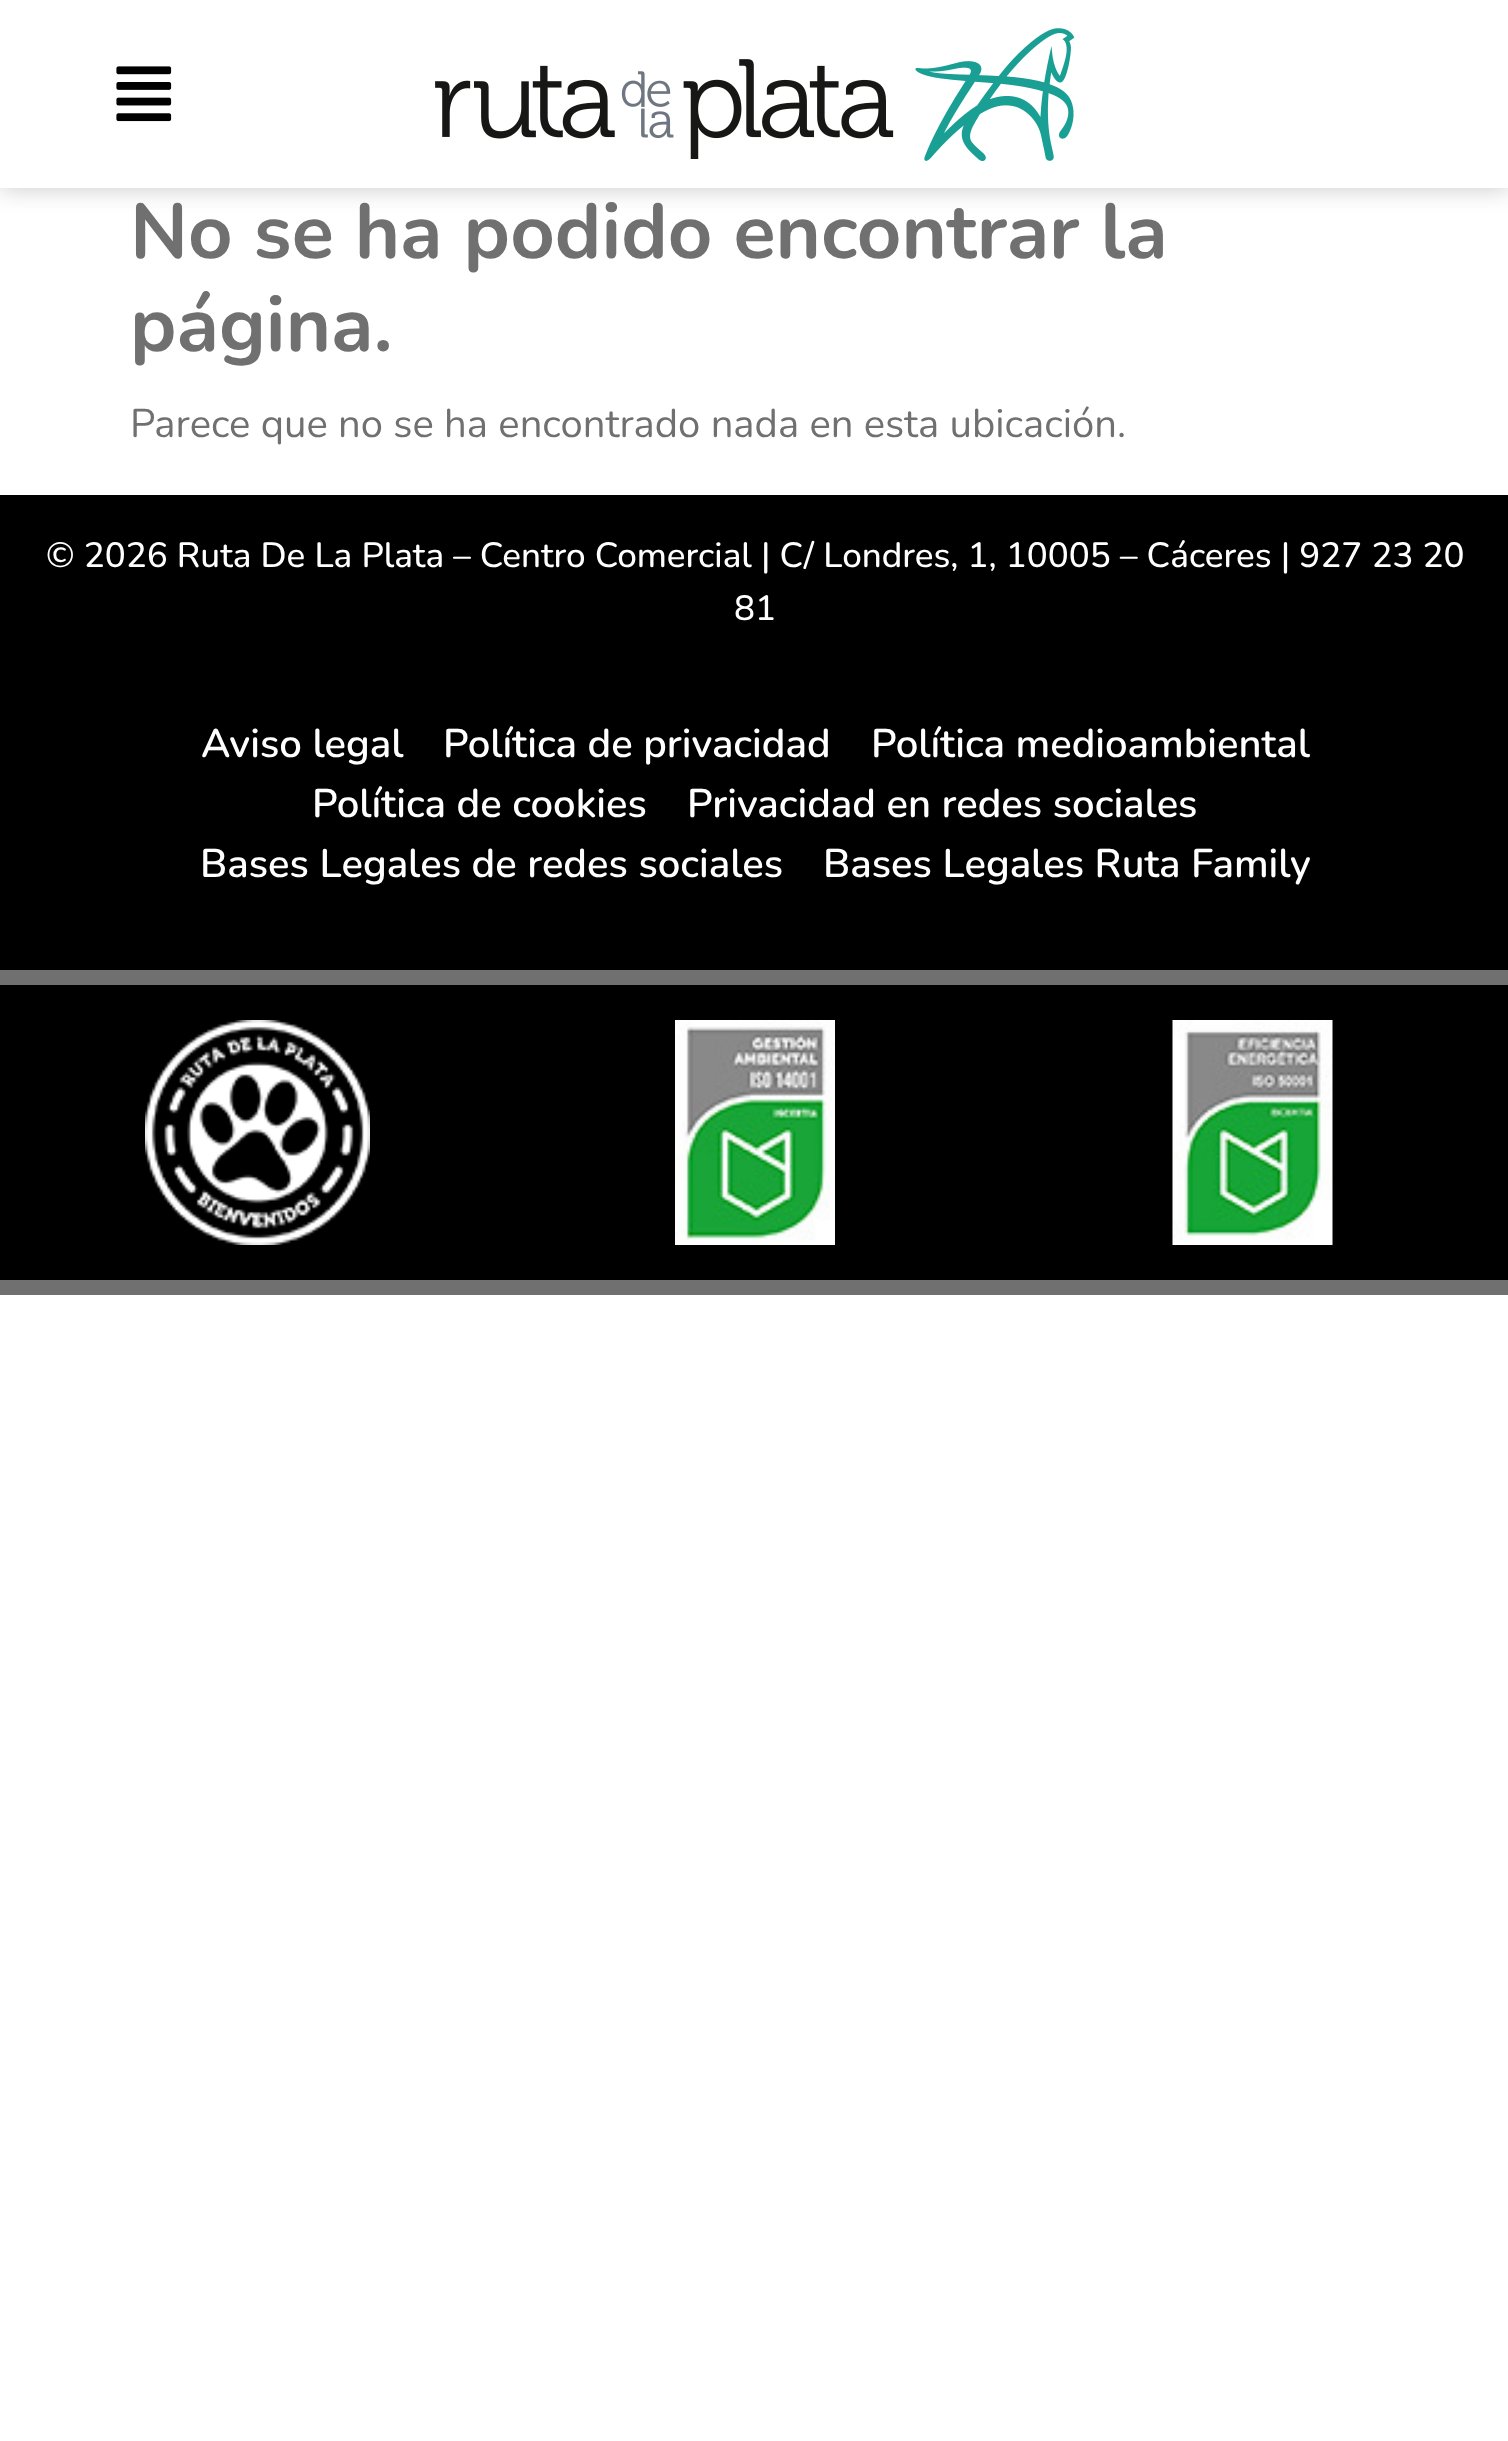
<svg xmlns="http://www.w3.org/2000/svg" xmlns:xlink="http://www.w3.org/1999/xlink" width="1508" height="2441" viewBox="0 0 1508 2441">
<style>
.cls-1{font:bold 77.6px Nunito;fill:#707070}
.cls-2{font:40px Nunito;fill:#707070}
.cls-3{font:500 35px Nunito;fill:#ffffff}
.cls-4{font:600 40px Nunito;fill:#ffffff}
</style>
<rect width="100%" height="100%" fill="#ffffff"/>
<rect fill="#000000" fill-opacity="0.22" filter="blur(12.5px)" x="0" y="0" width="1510" height="188"/>
<rect fill="#ffffff" x="0" y="0" width="1508" height="188"/>
<image xlink:href="image0.png" x="116" y="66" width="56" height="56"/>
<image xlink:href="image1.png" x="435" y="28" width="640" height="133"/>
<rect fill="#000000" x="0" y="495" width="1508" height="475"/>
<rect fill="#707070" x="0" y="970" width="1508" height="15"/>
<rect fill="#000000" x="0" y="985" width="1508" height="295"/>
<rect fill="#707070" x="0" y="1280" width="1508" height="15"/>
<image xlink:href="image2.png" x="145" y="1020" width="225" height="225"/>
<image xlink:href="image3.png" x="675" y="1020" width="160" height="225"/>
<image xlink:href="image4.png" x="1172" y="1020" width="161" height="225"/>
<text class="cls-1"><tspan x="130" y="258">No se ha podido encontrar la</tspan><tspan x="130" y="351">página.</tspan></text>
<text class="cls-2" x="130" y="437">Parece que no se ha encontrado nada en esta ubicación.</text>
<text class="cls-3" x="46" y="567">© 2026 Ruta De La Plata – Centro Comercial | C/ Londres, 1, 10005 – Cáceres | 927 23 20</text>
<text class="cls-3" x="734" y="620">81</text>
<text class="cls-4" x="201" y="757">Aviso legal</text>
<text class="cls-4" x="443" y="757">Política de privacidad</text>
<text class="cls-4" x="871" y="757">Política medioambiental</text>
<text class="cls-4" x="312" y="817">Política de cookies</text>
<text class="cls-4" x="687" y="817">Privacidad en redes sociales</text>
<text class="cls-4" x="200" y="877">Bases Legales de redes sociales</text>
<text class="cls-4" x="823" y="877">Bases Legales Ruta Family</text>
</svg>
